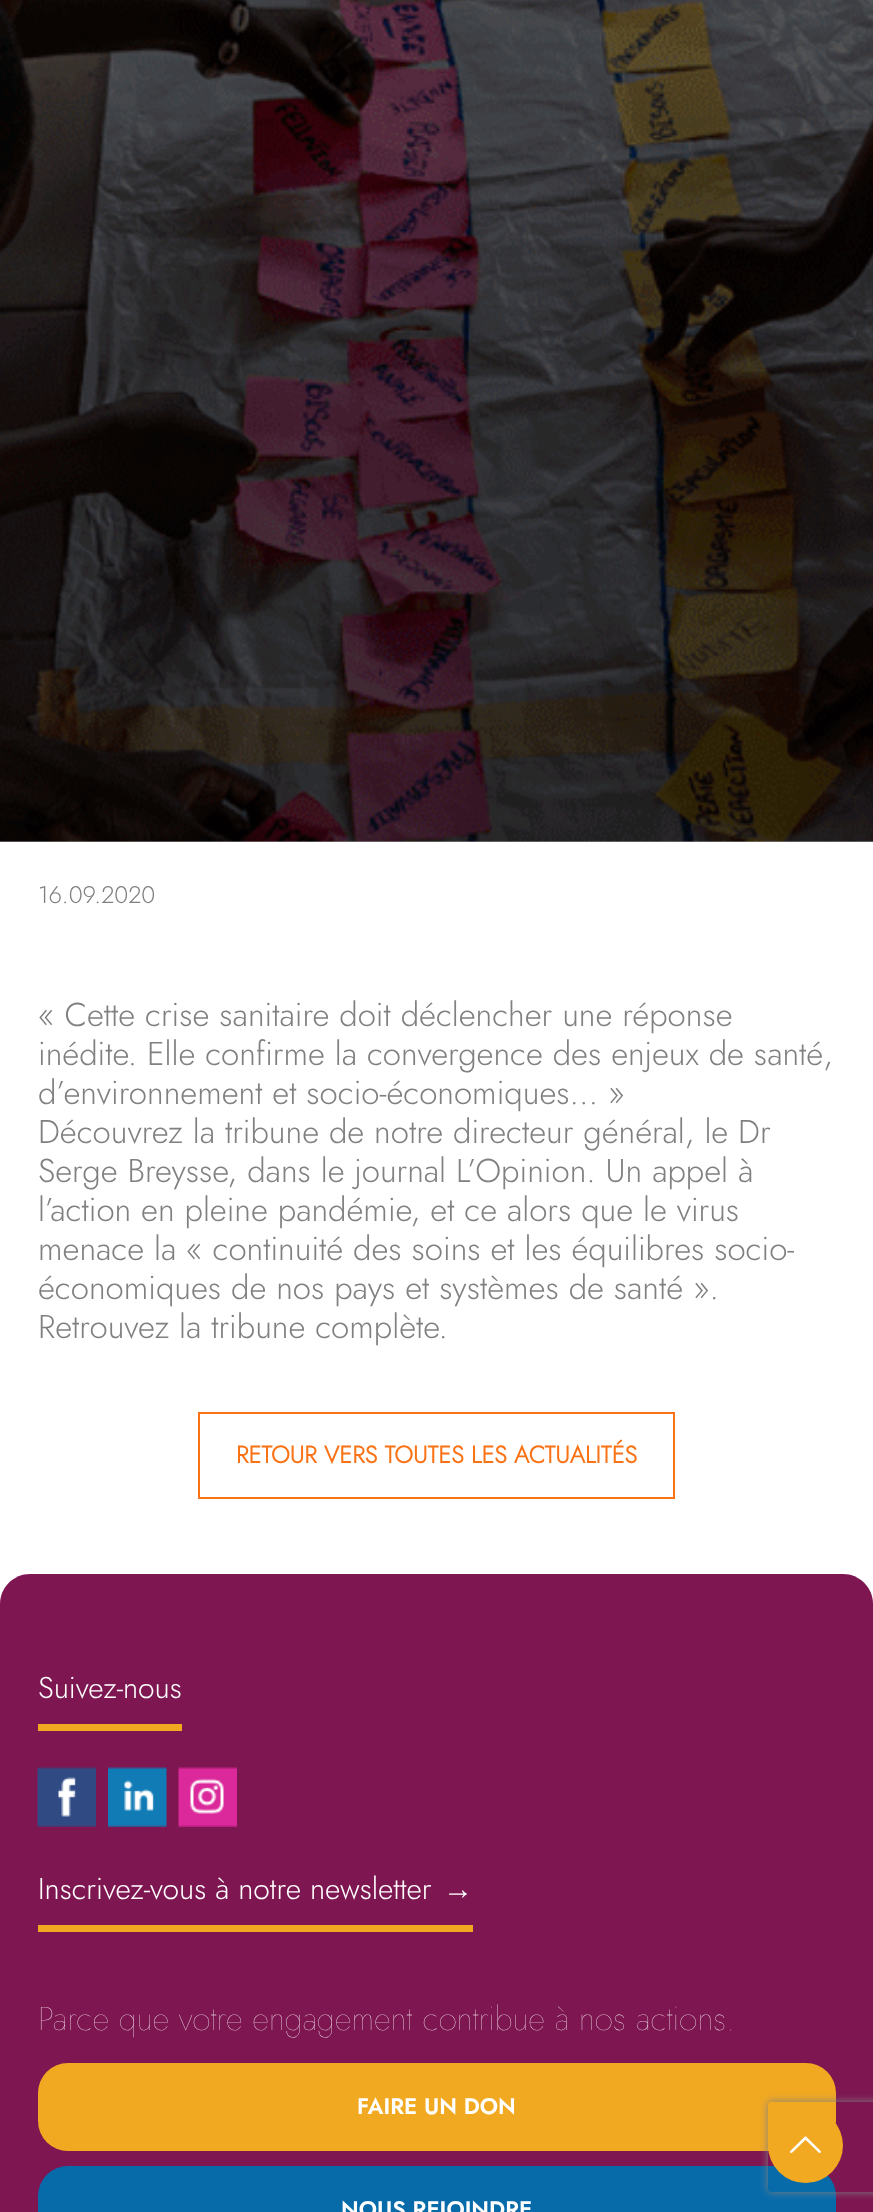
<svg xmlns="http://www.w3.org/2000/svg" xmlns:xlink="http://www.w3.org/1999/xlink" width="873" height="2212" viewBox="0 0 873 2212">
<style>
.cls-1{font:300 24px Jost;fill:#808080}
.cls-2{font:300 33px Jost;fill:#808080}
.cls-3{font:bold 24px Jost;fill:#f97316}
.cls-4{font:300 30px Jost;fill:#ffffff}
.cls-5{font:30px Liberation Serif;fill:#ffffff}
.cls-6{font:100 33px Jost;fill:#ffffff}
.cls-7{font:600 22.5px Jost;fill:#ffffff}
</style>
<defs>
<clipPath id="clip1"><path d="M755 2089H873V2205H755ZM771 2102H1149C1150.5 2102 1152 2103.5 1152 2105V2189C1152 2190.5 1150.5 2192 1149 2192H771C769.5 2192 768 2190.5 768 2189V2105C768 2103.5 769.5 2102 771 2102Z" clip-rule="evenodd"/></clipPath>
</defs>
<rect width="100%" height="100%" fill="#ffffff"/>
<rect fill="#999999" x="0" y="841" width="873" height="1"/>
<image xlink:href="image0.png" x="0" y="0" width="873" height="842"/>
<rect fill="none" stroke="#f97316" stroke-width="2" x="199" y="1413" width="475" height="85"/>
<path fill="#7e1651" d="M30 1574H843C859.5 1574 873 1587.5 873 1604V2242H0V1604C0 1587.5 13.5 1574 30 1574Z"/>
<rect fill="#f2a922" x="38" y="1724" width="144" height="7"/>
<image xlink:href="image1.png" x="37" y="1767" width="59" height="60"/>
<image xlink:href="image2.png" x="108" y="1767" width="59" height="60"/>
<image xlink:href="image3.png" x="178" y="1767" width="59" height="60"/>
<rect fill="#f2a922" x="38" y="1925" width="435" height="7"/>
<rect fill="#f2a922" x="38" y="2063" width="798" height="88" rx="30"/>
<rect fill="#076baa" x="38" y="2166" width="798" height="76" rx="30"/>
<g clip-path="url(#clip1)">
<rect fill="#808080" filter="blur(4px)" x="768" y="2102" width="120" height="90" rx="3"/>
</g>
<circle fill="#f2a922" cx="805.5" cy="2145.5" r="37.5"/>
<image xlink:href="image4.png" x="790" y="2136" width="31" height="18"/>
<text class="cls-1" x="38" y="903">16.09.2020</text>
<text class="cls-2"><tspan x="38" y="1026">« Cette crise sanitaire doit déclencher une réponse</tspan><tspan x="38" y="1065">inédite. Elle confirme la convergence des enjeux de santé,</tspan><tspan x="38" y="1104">d’environnement et socio-économiques… »</tspan><tspan x="38" y="1143">Découvrez la tribune de notre directeur général, le Dr</tspan><tspan x="38" y="1182">Serge Breysse, dans le journal L’Opinion. Un appel à</tspan><tspan x="38" y="1221">l’action en pleine pandémie, et ce alors que le virus</tspan><tspan x="38" y="1260">menace la « continuité des soins et les équilibres socio-</tspan><tspan x="38" y="1299">économiques de nos pays et systèmes de santé ».</tspan><tspan x="38" y="1338">Retrouvez la tribune complète.</tspan></text>
<text class="cls-3" x="236" y="1463">RETOUR VERS TOUTES LES ACTUALITÉS</text>
<text class="cls-4" x="38" y="1698">Suivez-nous</text>
<text class="cls-4" x="38" y="1899">Inscrivez-vous à notre newsletter</text>
<text class="cls-5" x="443" y="1899">→</text>
<text class="cls-6" x="38" y="2030">Parce que votre engagement contribue à nos actions.</text>
<text class="cls-7" x="357" y="2114">FAIRE UN DON</text>
<text class="cls-7" x="341" y="2217">NOUS REJOINDRE</text>
</svg>
